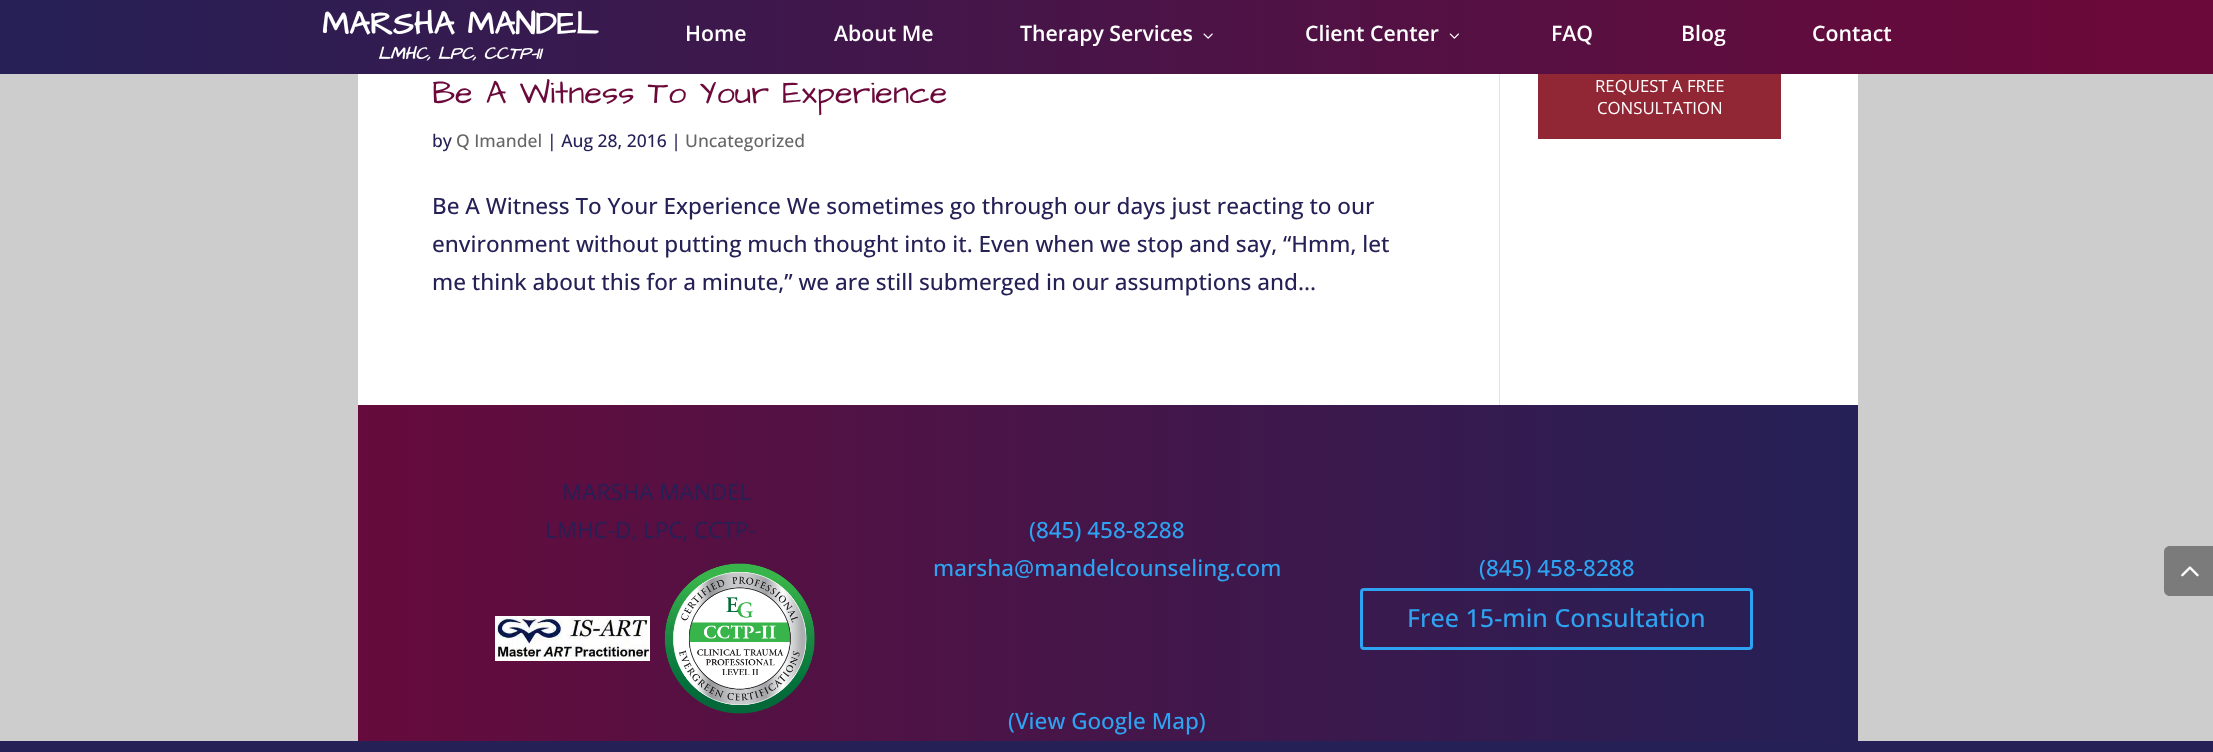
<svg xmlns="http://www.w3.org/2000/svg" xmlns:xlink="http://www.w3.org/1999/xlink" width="2213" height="752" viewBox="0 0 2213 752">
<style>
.cls-1{font:bold 32.5px Architects Daughter;fill:#ffffff}
.cls-2{font:italic bold 17.5px Architects Daughter;fill:#ffffff}
.cls-3{font:600 21.25px Open Sans;fill:#ffffff}
.cls-4{font:32.5px Architects Daughter;fill:#6a093a}
.cls-5{font:500 17.5px Open Sans;fill:#252056}
.cls-6{font:500 17.5px Open Sans;fill:#666666}
.cls-7{font:500 22.5px Open Sans;fill:#252056}
.cls-8{font:16.75px Open Sans;fill:#ffffff}
.cls-9{font:22.5px Open Sans;fill:#252056}
.cls-10{font:500 22.5px Open Sans;fill:#2ea3f2}
.cls-11{font:500 25px Open Sans;fill:#2ea3f2}
</style>
<defs>
<linearGradient id="g1" gradientUnits="userSpaceOnUse" x1="0" y1="37" x2="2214" y2="37"><stop offset="0" stop-color="#252056"/><stop offset="0.95" stop-color="#6a093a"/></linearGradient>
<linearGradient id="g2" gradientUnits="userSpaceOnUse" x1="358" y1="606" x2="1858" y2="606"><stop offset="0" stop-color="#660b3c"/><stop offset="0.99" stop-color="#252056"/></linearGradient>
</defs>
<rect width="100%" height="100%" fill="#cdcdcd"/>
<rect fill="url(#g1)" x="0" y="0" width="2213" height="74"/>
<image xlink:href="image0.png" x="1203" y="33" width="10" height="6"/>
<image xlink:href="image1.png" x="1449" y="33" width="10" height="6"/>
<rect fill="#ffffff" x="358" y="74" width="1500" height="331"/>
<rect fill="#e2e2e2" x="1499" y="74" width="1" height="331"/>
<rect fill="#912734" x="1538" y="74" width="243" height="65"/>
<rect fill="url(#g2)" x="358" y="405" width="1500" height="336"/>
<image xlink:href="image2.png" x="495" y="616" width="155" height="45"/>
<image xlink:href="image3.png" x="664" y="563" width="151" height="151"/>
<rect fill="none" stroke="#2ea3f2" stroke-width="3" x="1361.5" y="589.5" width="390" height="59" rx="2.5"/>
<path fill="#7b7b7b" d="M2170 546H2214V596H2170C2166.5 596 2164 593.5 2164 590V552C2164 548.5 2166.5 546 2170 546Z"/>
<image xlink:href="image4.png" x="2181" y="566" width="18" height="11"/>
<rect fill="#252156" x="0" y="741" width="2213" height="11"/>
<text class="cls-1" x="322" y="34">MARSHA MANDEL</text>
<text class="cls-2" x="378" y="59">LMHC, LPC, CCTP-II</text>
<text class="cls-3" x="685" y="41">Home</text>
<text class="cls-3" x="834" y="41">About Me</text>
<text class="cls-3" x="1020" y="41">Therapy Services</text>
<text class="cls-3" x="1305" y="41">Client Center</text>
<text class="cls-3" x="1551" y="41">FAQ</text>
<text class="cls-3" x="1681" y="41">Blog</text>
<text class="cls-3" x="1812" y="41">Contact</text>
<text class="cls-4" x="432" y="103">Be A Witness To Your Experience</text>
<text class="cls-5" x="432" y="147">by</text>
<text class="cls-6" x="456" y="147">Q Imandel</text>
<text class="cls-5" x="547" y="147">| Aug 28, 2016 |</text>
<text class="cls-6" x="685" y="147">Uncategorized</text>
<text class="cls-7"><tspan x="432" y="214">Be A Witness To Your Experience We sometimes go through our days just reacting to our</tspan><tspan x="432" y="252">environment without putting much thought into it. Even when we stop and say, “Hmm, let</tspan><tspan x="432" y="290">me think about this for a minute,” we are still submerged in our assumptions and...</tspan></text>
<text class="cls-8" x="1595" y="92">REQUEST A FREE</text>
<text class="cls-8" x="1597" y="114">CONSULTATION</text>
<text class="cls-9" x="562" y="500">MARSHA MANDEL</text>
<text class="cls-9" x="545" y="538">LMHC-D, LPC, CCTP-</text>
<text class="cls-10" x="1029" y="538">(845) 458-8288</text>
<text class="cls-10" x="933" y="576">marsha@mandelcounseling.com</text>
<text class="cls-10" x="1008" y="729">(View Google Map)</text>
<text class="cls-10" x="1479" y="576">(845) 458-8288</text>
<text class="cls-11" x="1407" y="627">Free 15-min Consultation</text>
</svg>
